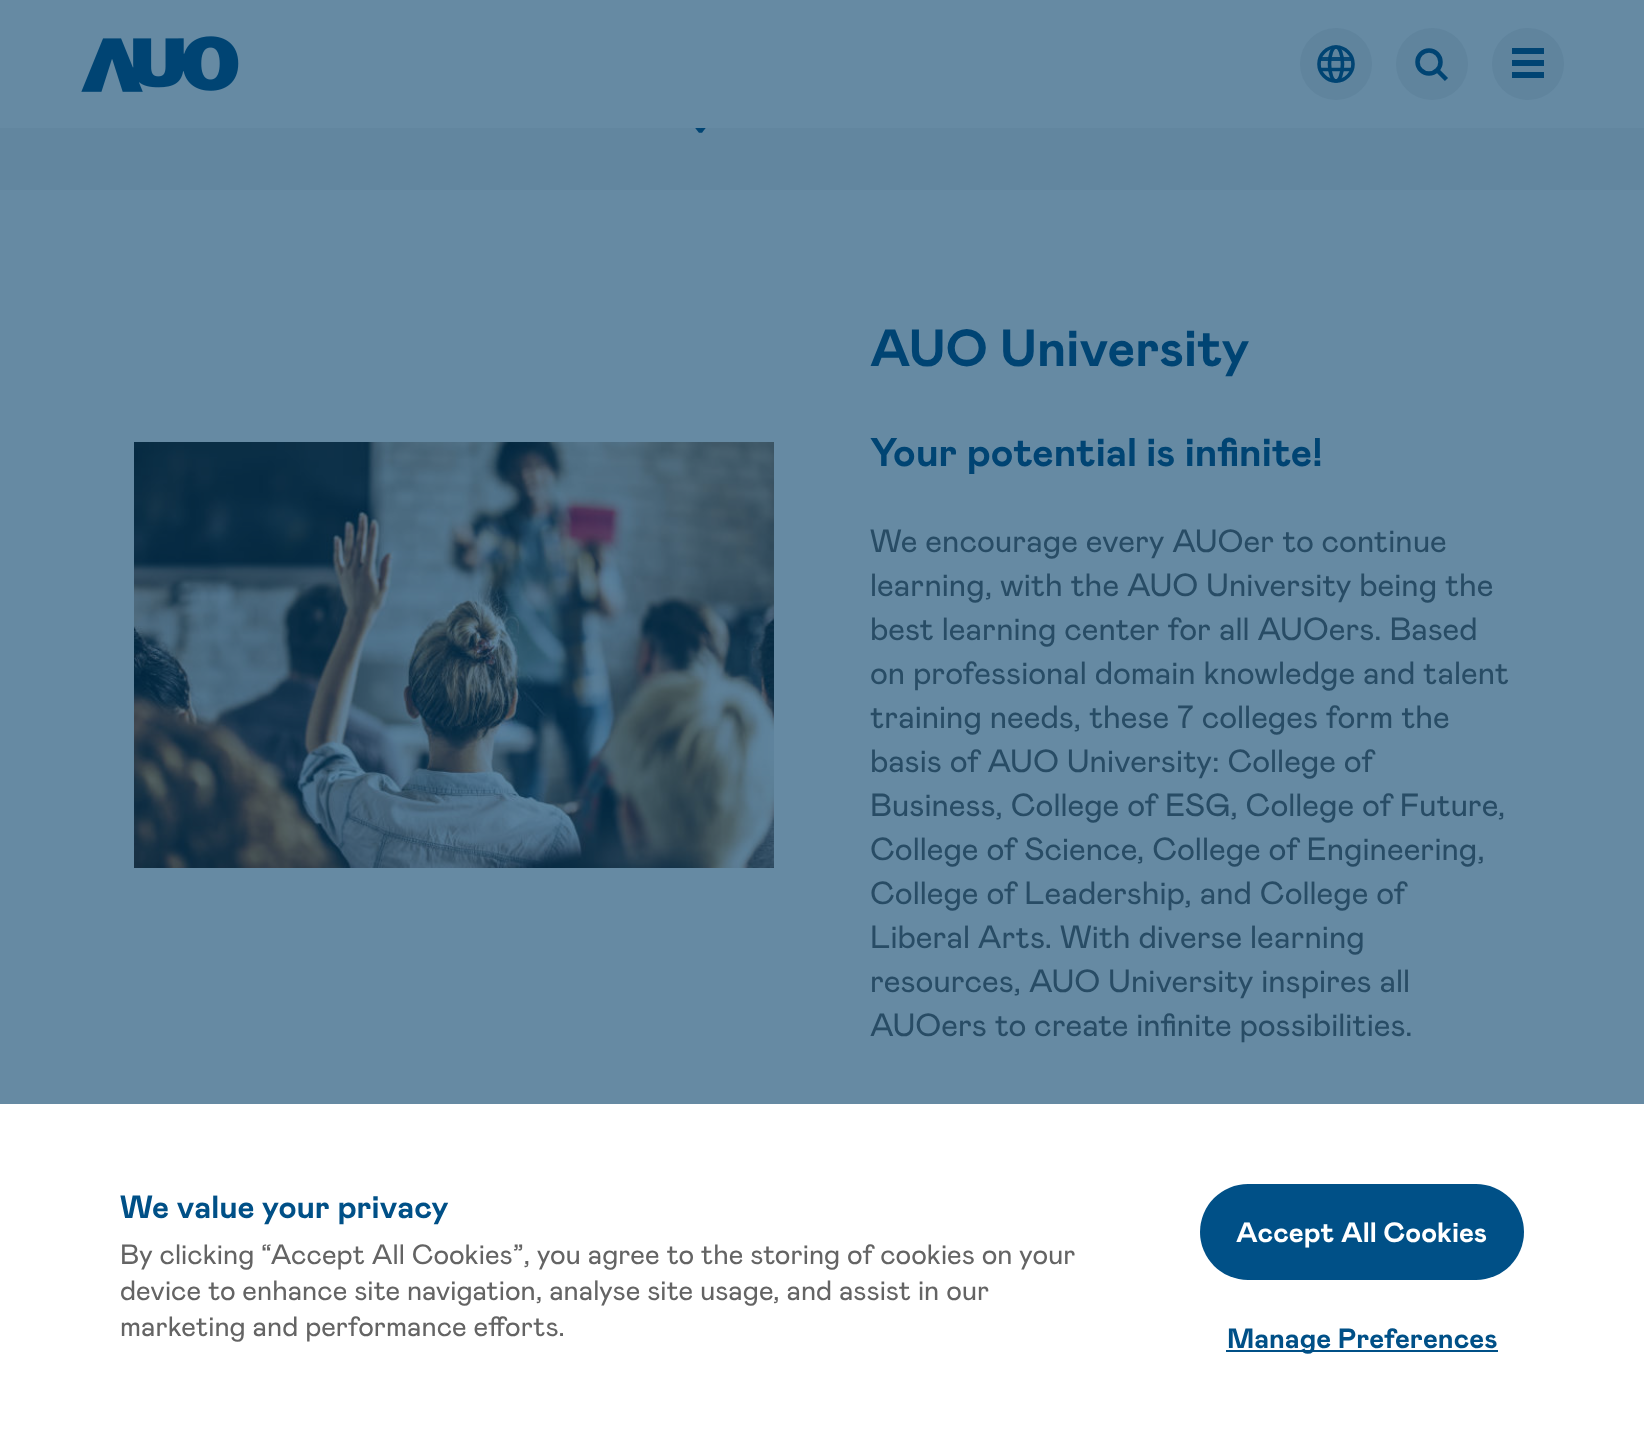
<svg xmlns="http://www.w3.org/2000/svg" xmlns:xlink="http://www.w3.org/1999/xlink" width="1644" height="1435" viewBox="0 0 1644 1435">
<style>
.cls-1{font:bold 52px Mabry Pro;fill:#004473}
.cls-2{font:bold 40px Mabry Pro;fill:#004473}
.cls-3{font:32px Mabry Pro;fill:#284c65}
.cls-4{font:bold 32px Mabry Pro;fill:#005087}
.cls-5{font:28px Mabry Pro;fill:#646464}
.cls-6{font:bold 28px Mabry Pro;fill:#ffffff}
.cls-7{font:bold 28px Mabry Pro;fill:#005087}
</style>
<rect width="100%" height="100%" fill="#668aa3"/>
<rect fill="#62869f" x="0" y="128" width="1644" height="62"/>
<path fill="none" stroke="#004473" stroke-width="4" stroke-linejoin="bevel" d="M714.5 119.5C707 122 705 125.5 700.5 131.5L695 124.5C692.5 122 689.5 121 686.5 119.5"/>
<rect fill="#668aa3" x="685" y="117" width="31" height="11"/>
<image xlink:href="image0.png" x="81" y="36" width="158" height="56"/>
<circle fill="#60849d" cx="1336" cy="64" r="36"/>
<circle fill="none" stroke="#004473" stroke-width="3.6" cx="1336" cy="64" r="17"/>
<ellipse fill="none" stroke="#004473" stroke-width="3.6" cx="1336" cy="64" rx="6.5" ry="17"/>
<rect fill="#004473" fill-opacity="0.9" x="1320" y="57" width="33" height="4"/>
<path fill="none" stroke="#004473" stroke-width="3.6" d="M1319.5 69.5H1352.5M1319.5 69.5H1352.5"/>
<circle fill="#60849d" cx="1432" cy="64" r="36"/>
<circle fill="none" stroke="#004473" stroke-width="4.5" cx="1429" cy="62" r="11.5"/>
<path fill="none" stroke="#004473" stroke-width="4.5" stroke-linejoin="round" d="M1436.5 69.5L1446.5 79.5"/>
<circle fill="#60849d" cx="1528" cy="64" r="36"/>
<rect fill="#004473" x="1512" y="48" width="32" height="6"/>
<rect fill="#004473" x="1512" y="60" width="32" height="6"/>
<rect fill="#004473" x="1512" y="72" width="32" height="6"/>
<image xlink:href="image1.png" x="134" y="442" width="640" height="426"/>
<rect fill="#ffffff" x="0" y="1104" width="1644" height="331"/>
<rect fill="#005087" x="1200" y="1184" width="324" height="96" rx="48"/>
<rect fill="#005087" x="1226" y="1350" width="272" height="2"/>
<text class="cls-1" x="870" y="366">AUO University</text>
<text class="cls-2" x="870" y="466">Your potential is infinite!</text>
<text class="cls-3"><tspan x="870" y="552">We encourage every AUOer to continue</tspan><tspan x="870" y="596">learning, with the AUO University being the</tspan><tspan x="870" y="640">best learning center for all AUOers. Based</tspan><tspan x="870" y="684">on professional domain knowledge and talent</tspan><tspan x="870" y="728">training needs, these 7 colleges form the</tspan><tspan x="870" y="772">basis of AUO University: College of</tspan><tspan x="870" y="816">Business, College of ESG, College of Future,</tspan><tspan x="870" y="860">College of Science, College of Engineering,</tspan><tspan x="870" y="904">College of Leadership, and College of</tspan><tspan x="870" y="948">Liberal Arts. With diverse learning</tspan><tspan x="870" y="992">resources, AUO University inspires all</tspan><tspan x="870" y="1036">AUOers to create infinite possibilities.</tspan></text>
<text class="cls-4" x="120" y="1218">We value your privacy</text>
<text class="cls-5"><tspan x="120" y="1264">By clicking “Accept All Cookies”, you agree to the storing of cookies on your</tspan><tspan x="120" y="1300">device to enhance site navigation, analyse site usage, and assist in our</tspan><tspan x="120" y="1336">marketing and performance efforts.</tspan></text>
<text class="cls-6" x="1236" y="1242">Accept All Cookies</text>
<text class="cls-7" x="1227" y="1348">Manage Preferences</text>
</svg>
